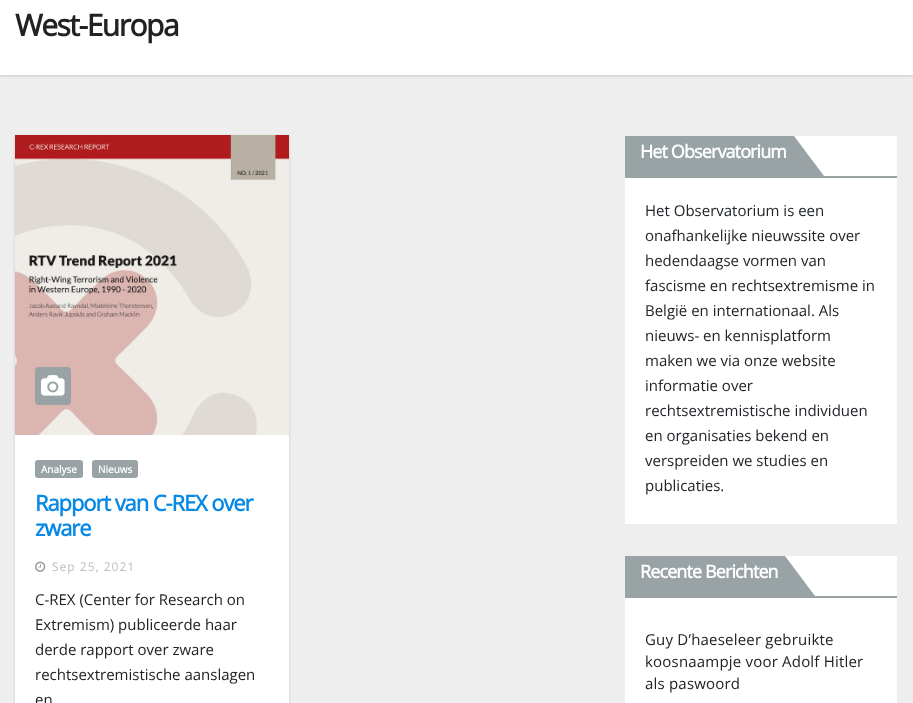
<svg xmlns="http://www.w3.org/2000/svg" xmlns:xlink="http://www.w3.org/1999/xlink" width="913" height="703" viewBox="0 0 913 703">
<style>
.cls-1{font:bold 30px Open Sans;letter-spacing:-1.5px;fill:#222222}
.cls-2{font:bold 10px Open Sans;fill:#ffffff}
.cls-3{font:bold 22px Open Sans;letter-spacing:-1.1px;fill:#0889e4}
.cls-4{font:12px Open Sans;letter-spacing:1px;fill:#bdbdbd}
.cls-5{font:15px Open Sans;fill:#222222}
.cls-6{font:bold 18px Open Sans;letter-spacing:-0.9px;fill:#ffffff}
.cls-7{font:15px Open Sans;fill:#212529}
.cls-8{font:15px Open Sans;letter-spacing:0.2px;fill:#222222}
</style>
<rect width="100%" height="100%" fill="#eeeeee"/>
<rect fill="#000000" fill-opacity="0.15" filter="blur(1.5px)" x="0" y="-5" width="913" height="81"/>
<rect fill="#ffffff" x="0" y="0" width="913" height="75"/>
<rect fill="#000000" fill-opacity="0.15" filter="blur(1.5px)" x="15" y="136" width="274" height="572"/>
<rect fill="#ffffff" x="15" y="435" width="274" height="268"/>
<image xlink:href="image0.png" x="15" y="135" width="274" height="300"/>
<rect fill="#99a3a5" x="35" y="367" width="36" height="38" rx="4"/>
<image xlink:href="image1.png" x="41" y="375" width="24" height="21"/>
<rect fill="#99a3a5" x="35" y="460" width="48" height="18" rx="3"/>
<rect fill="#99a3a5" x="92" y="460" width="46" height="18" rx="3"/>
<image xlink:href="image2.png" x="35" y="561" width="11" height="11"/>
<rect fill="#ffffff" x="625" y="136" width="272" height="388"/>
<rect fill="#99a3a5" x="625" y="176" width="272" height="2"/>
<rect fill="#99a3a5" x="625" y="136" width="169" height="40"/>
<path fill="#99a3a5" d="M794 176V136L824 176Z"/>
<rect fill="#ffffff" x="625" y="556" width="272" height="147"/>
<rect fill="#99a3a5" x="625" y="596" width="272" height="2"/>
<rect fill="#99a3a5" x="625" y="556" width="160" height="40"/>
<path fill="#99a3a5" d="M785 596V556L815 596Z"/>
<text class="cls-1" x="15" y="36">West-Europa</text>
<text class="cls-2" x="41" y="473">Analyse</text>
<text class="cls-2" x="98" y="473">Nieuws</text>
<text class="cls-3"><tspan x="35" y="511">Rapport van C-REX over</tspan><tspan x="35" y="536">zware</tspan></text>
<text class="cls-4" x="52" y="571">Sep 25, 2021</text>
<text class="cls-5"><tspan x="35" y="605">C-REX (Center for Research on</tspan><tspan x="35" y="630">Extremism) publiceerde haar</tspan><tspan x="35" y="655">derde rapport over zware</tspan><tspan x="35" y="680">rechtsextremistische aanslagen</tspan><tspan x="35" y="705">en</tspan></text>
<text class="cls-6" x="640" y="158">Het Observatorium</text>
<text class="cls-7"><tspan x="645" y="216">Het Observatorium is een</tspan><tspan x="645" y="241">onafhankelijke nieuwssite over</tspan><tspan x="645" y="266">hedendaagse vormen van</tspan><tspan x="645" y="291">fascisme en rechtsextremisme in</tspan><tspan x="645" y="316">België en internationaal. Als</tspan><tspan x="645" y="341">nieuws- en kennisplatform</tspan><tspan x="645" y="366">maken we via onze website</tspan><tspan x="645" y="391">informatie over</tspan><tspan x="645" y="416">rechtsextremistische individuen</tspan><tspan x="645" y="441">en organisaties bekend en</tspan><tspan x="645" y="466">verspreiden we studies en</tspan><tspan x="645" y="491">publicaties.</tspan></text>
<text class="cls-6" x="640" y="578">Recente Berichten</text>
<text class="cls-8"><tspan x="645" y="645">Guy D’haeseleer gebruikte</tspan><tspan x="645" y="667">koosnaampje voor Adolf Hitler</tspan><tspan x="645" y="689">als paswoord</tspan></text>
</svg>
